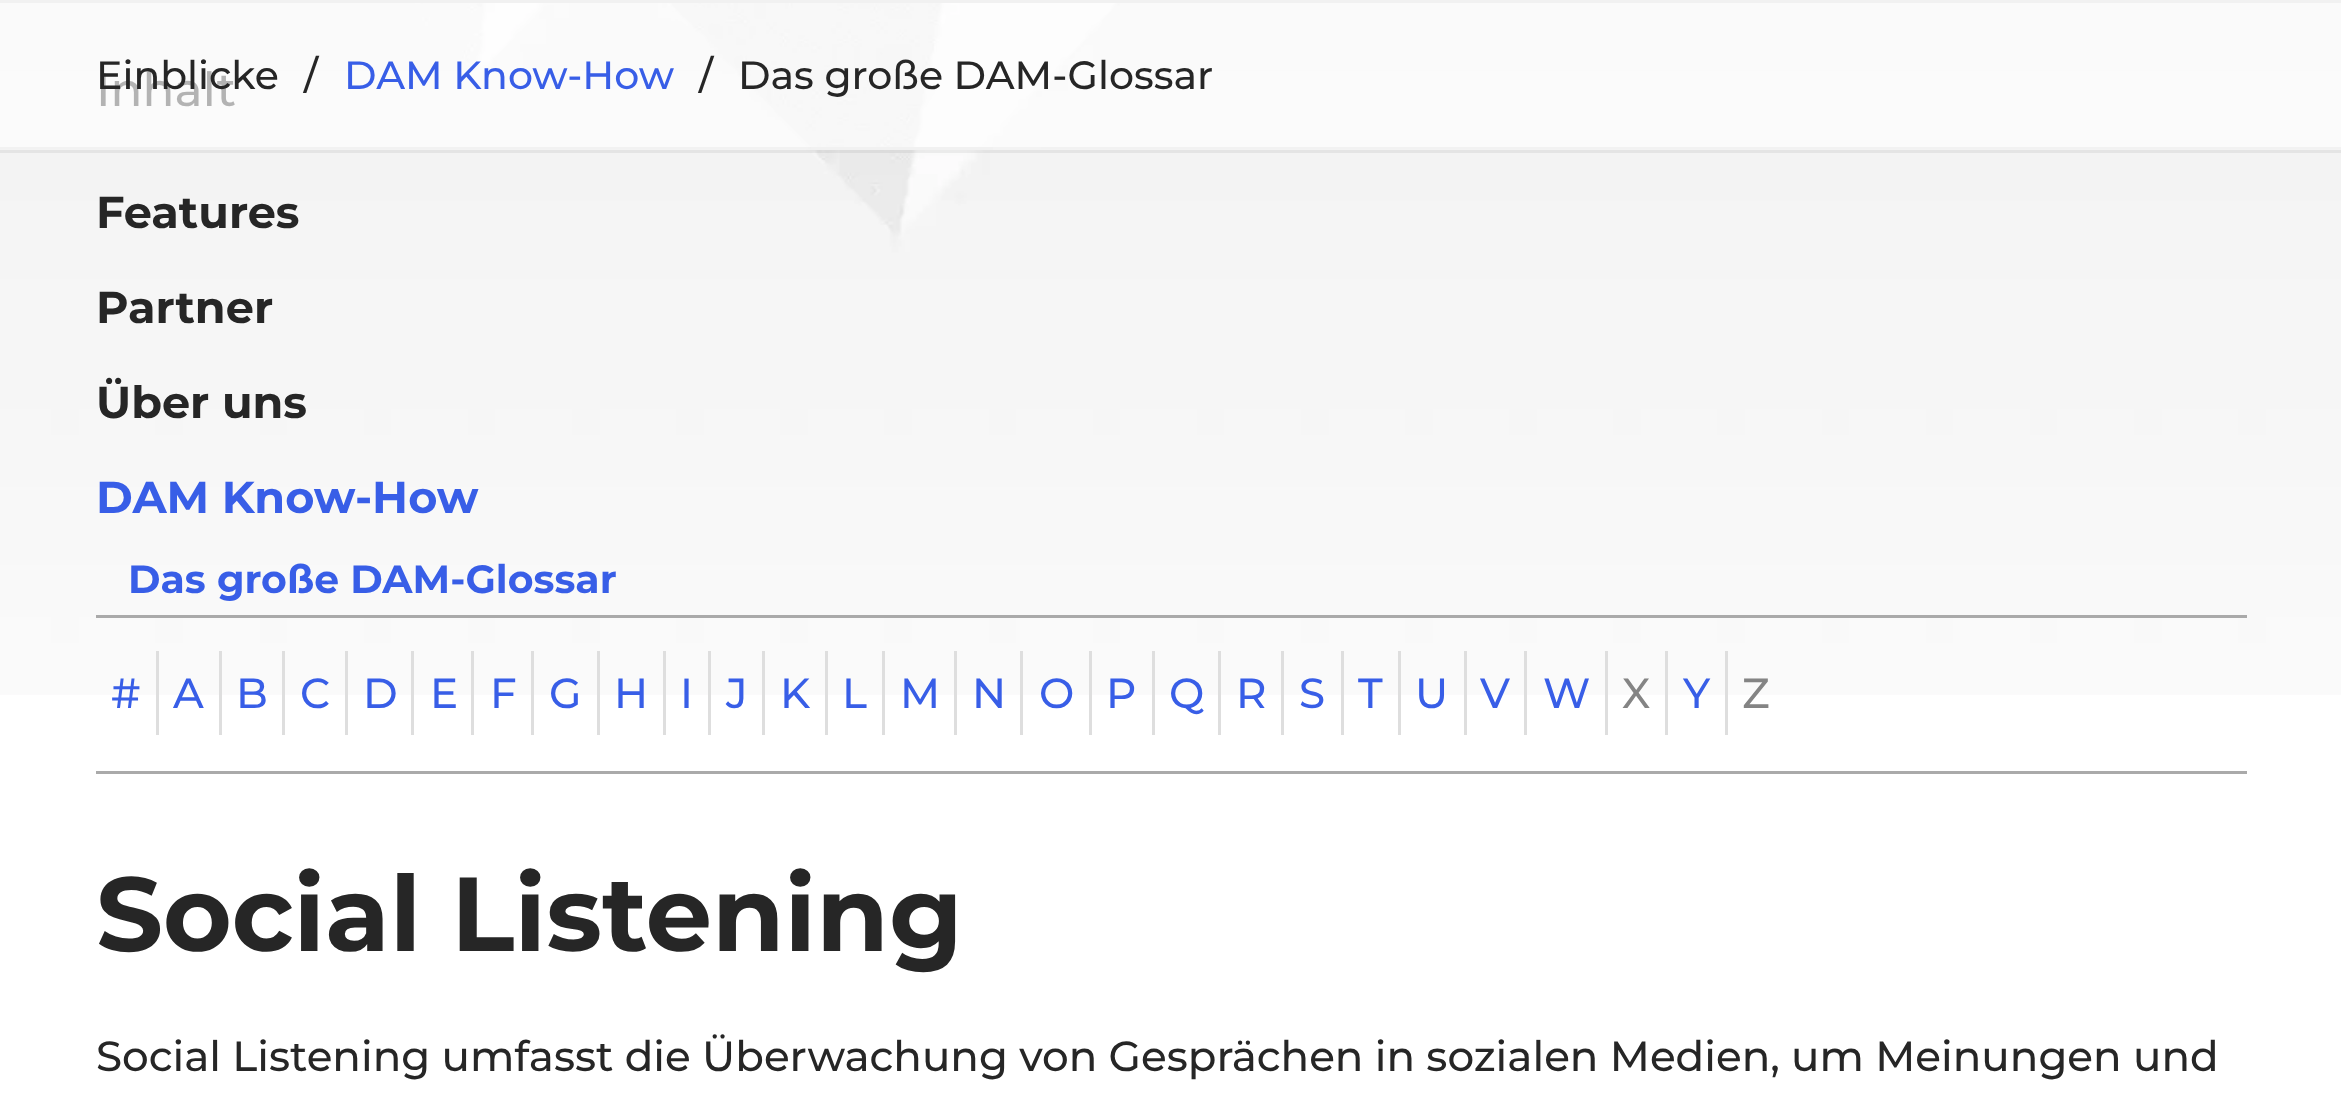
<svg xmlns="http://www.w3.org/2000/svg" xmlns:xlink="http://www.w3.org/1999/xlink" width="2341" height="1104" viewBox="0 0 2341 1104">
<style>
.cls-1{font:500 47px Montserrat;fill:#262626}
.cls-2{font:500 39.4px Montserrat;fill:#262626}
.cls-3{font:500 39.4px Montserrat;fill:#385ee7}
.cls-4{font:bold 44.6px Montserrat;fill:#262626}
.cls-5{font:bold 44.6px Montserrat;fill:#385ee7}
.cls-6{font:bold 39.4px Montserrat;fill:#385ee7}
.cls-7{font:500 42px Montserrat;fill:#385ee7}
.cls-8{font:500 42px Montserrat;fill:#848484}
.cls-9{font:bold 105px Montserrat;fill:#262626}
.cls-10{font:500 42px Montserrat;fill:#262626}
</style>
<rect width="100%" height="100%" fill="#ffffff"/>
<image xlink:href="image0.png" x="0" y="3" width="2341" height="692"/>
<rect fill="none" stroke="#000000" stroke-opacity="0.06" stroke-width="3" x="-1.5" y="-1.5" width="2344" height="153"/>
<rect fill="#f1f1f1" x="0" y="0" width="2341" height="3"/>
<rect fill="#f1f1f1" x="811" y="147" width="182" height="3"/>
<rect fill="#aaaaaa" x="96" y="615" width="2151" height="3"/>
<rect fill="#aaaaaa" x="96" y="771" width="2151" height="3"/>
<rect fill="#dedede" x="156" y="651" width="3" height="84"/>
<rect fill="#dedede" x="219" y="651" width="3" height="84"/>
<rect fill="#dedede" x="282" y="651" width="3" height="84"/>
<rect fill="#dedede" x="345" y="651" width="3" height="84"/>
<rect fill="#dedede" x="411" y="651" width="3" height="84"/>
<rect fill="#dedede" x="471" y="651" width="3" height="84"/>
<rect fill="#dedede" x="531" y="651" width="3" height="84"/>
<rect fill="#dedede" x="597" y="651" width="3" height="84"/>
<rect fill="#dedede" x="663" y="651" width="3" height="84"/>
<rect fill="#dedede" x="708" y="651" width="3" height="84"/>
<rect fill="#dedede" x="762" y="651" width="3" height="84"/>
<rect fill="#dedede" x="825" y="651" width="3" height="84"/>
<rect fill="#dedede" x="882" y="651" width="3" height="84"/>
<rect fill="#dedede" x="954" y="651" width="3" height="84"/>
<rect fill="#dedede" x="1020" y="651" width="3" height="84"/>
<rect fill="#dedede" x="1089" y="651" width="3" height="84"/>
<rect fill="#dedede" x="1152" y="651" width="3" height="84"/>
<rect fill="#dedede" x="1218" y="651" width="3" height="84"/>
<rect fill="#dedede" x="1281" y="651" width="3" height="84"/>
<rect fill="#dedede" x="1341" y="651" width="3" height="84"/>
<rect fill="#dedede" x="1398" y="651" width="3" height="84"/>
<rect fill="#dedede" x="1464" y="651" width="3" height="84"/>
<rect fill="#dedede" x="1524" y="651" width="3" height="84"/>
<rect fill="#dedede" x="1605" y="651" width="3" height="84"/>
<rect fill="#dedede" x="1665" y="651" width="3" height="84"/>
<rect fill="#dedede" x="1725" y="651" width="3" height="84"/>
<text class="cls-1" x="96" y="106">Inhalt</text>
<rect fill="#ffffff" fill-opacity="0.65" x="0" y="3" width="2341" height="144"/>
<text class="cls-2" x="738" y="89">Das große DAM-Glossar</text>
<text class="cls-2" x="699" y="89">/</text>
<text class="cls-3" x="344" y="89">DAM Know-How</text>
<text class="cls-2" x="304" y="89">/</text>
<text class="cls-2" x="96" y="89">Einblicke</text>
<text class="cls-4" x="96" y="228">Features</text>
<text class="cls-4" x="96" y="323">Partner</text>
<text class="cls-4" x="96" y="418">Über uns</text>
<text class="cls-5" x="96" y="513">DAM Know-How</text>
<text class="cls-6" x="128" y="593">Das große DAM-Glossar</text>
<text class="cls-7" x="111" y="708">#</text>
<text class="cls-7" x="173" y="708">A</text>
<text class="cls-7" x="236" y="708">B</text>
<text class="cls-7" x="300" y="708">C</text>
<text class="cls-7" x="363" y="708">D</text>
<text class="cls-7" x="430" y="708">E</text>
<text class="cls-7" x="490" y="708">F</text>
<text class="cls-7" x="549" y="708">G</text>
<text class="cls-7" x="614" y="708">H</text>
<text class="cls-7" x="680" y="708">I</text>
<text class="cls-7" x="726" y="708">J</text>
<text class="cls-7" x="780" y="708">K</text>
<text class="cls-7" x="842" y="708">L</text>
<text class="cls-7" x="900" y="708">M</text>
<text class="cls-7" x="972" y="708">N</text>
<text class="cls-7" x="1039" y="708">O</text>
<text class="cls-7" x="1106" y="708">P</text>
<text class="cls-7" x="1169" y="708">Q</text>
<text class="cls-7" x="1236" y="708">R</text>
<text class="cls-7" x="1299" y="708">S</text>
<text class="cls-7" x="1358" y="708">T</text>
<text class="cls-7" x="1415" y="708">U</text>
<text class="cls-7" x="1480" y="708">V</text>
<text class="cls-7" x="1543" y="708">W</text>
<text class="cls-8" x="1622" y="708">X</text>
<text class="cls-7" x="1683" y="708">Y</text>
<text class="cls-8" x="1742" y="708">Z</text>
<text class="cls-9" x="96" y="951">Social Listening</text>
<text class="cls-10" x="96" y="1071">Social Listening umfasst die Überwachung von Gesprächen in sozialen Medien, um Meinungen und</text>
</svg>
